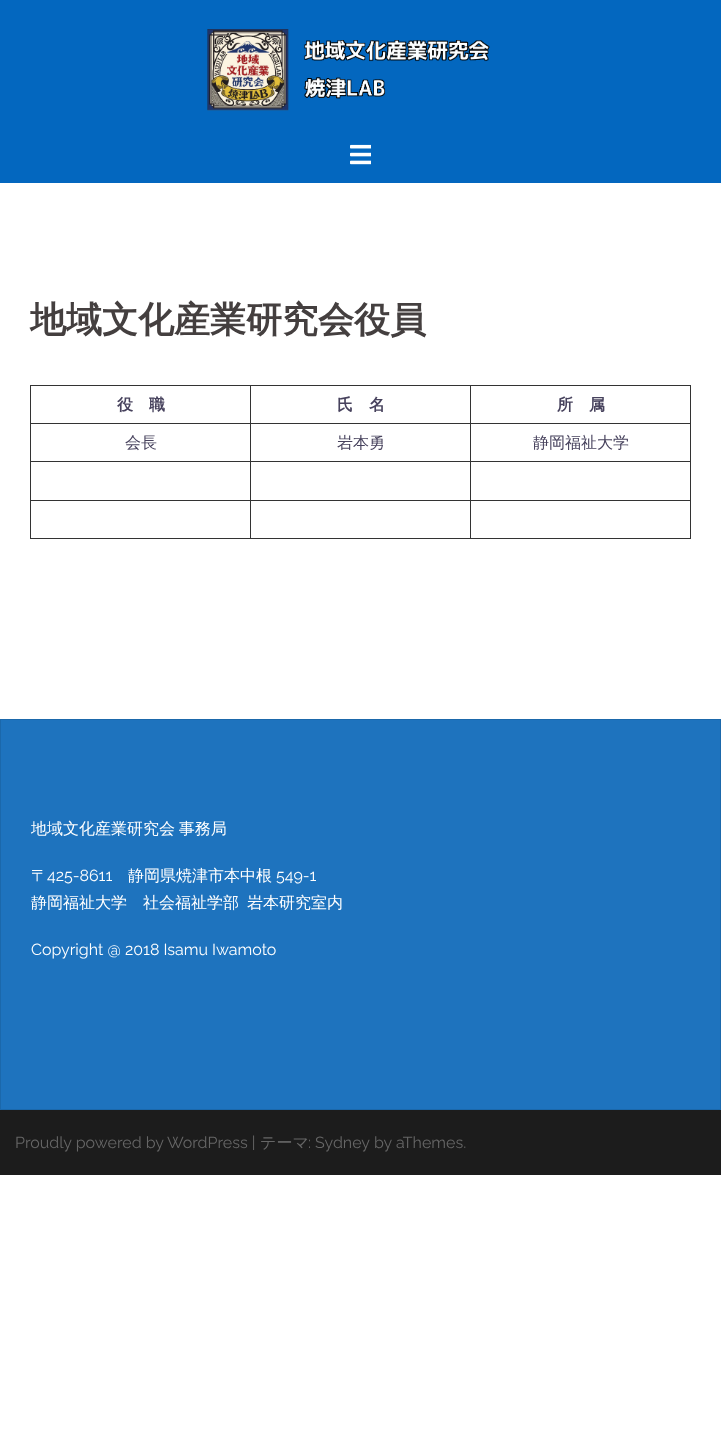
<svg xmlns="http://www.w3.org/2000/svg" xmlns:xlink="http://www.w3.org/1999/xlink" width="721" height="1431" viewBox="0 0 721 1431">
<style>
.cls-1{font:bold 36px WenQuanYi Zen Hei;fill:#443f3f}
.cls-2{font:bold 16px WenQuanYi Zen Hei;fill:#47425d}
.cls-3{font:500 16px WenQuanYi Zen Hei;fill:#47425d}
.cls-4{font:500 16px WenQuanYi Zen Hei;fill:#ffffff}
.cls-5{font:16px Raleway;fill:#ffffff}
.cls-6{font:16px Raleway;fill:#666666}
.cls-7{font:500 16px WenQuanYi Zen Hei;fill:#666666}
</style>
<rect width="100%" height="100%" fill="#ffffff"/>
<rect fill="#0367bf" x="0" y="0" width="721" height="183"/>
<image xlink:href="image0.png" x="207" y="29" width="283" height="82"/>
<image xlink:href="image1.png" x="350" y="144" width="21" height="21"/>
<rect fill="#333333" x="470" y="385" width="221" height="1"/>
<rect fill="#333333" x="470" y="423" width="221" height="1"/>
<rect fill="#333333" x="470" y="461" width="221" height="1"/>
<rect fill="#333333" x="470" y="500" width="221" height="1"/>
<rect fill="#333333" x="690" y="500" width="1" height="39"/>
<rect fill="#333333" x="470" y="538" width="221" height="1"/>
<rect fill="#333333" x="470" y="500" width="1" height="39"/>
<rect fill="#333333" x="250" y="500" width="221" height="1"/>
<rect fill="#333333" x="470" y="461" width="1" height="40"/>
<rect fill="#333333" x="250" y="461" width="221" height="1"/>
<rect fill="#333333" x="470" y="423" width="1" height="39"/>
<rect fill="#333333" x="250" y="423" width="221" height="1"/>
<rect fill="#333333" x="470" y="385" width="1" height="39"/>
<rect fill="#333333" x="250" y="385" width="221" height="1"/>
<rect fill="#333333" x="250" y="538" width="221" height="1"/>
<rect fill="#333333" x="250" y="500" width="1" height="39"/>
<rect fill="#333333" x="30" y="500" width="221" height="1"/>
<rect fill="#333333" x="250" y="461" width="1" height="40"/>
<rect fill="#333333" x="30" y="461" width="221" height="1"/>
<rect fill="#333333" x="250" y="423" width="1" height="39"/>
<rect fill="#333333" x="30" y="423" width="221" height="1"/>
<rect fill="#333333" x="250" y="385" width="1" height="39"/>
<rect fill="#333333" x="30" y="385" width="221" height="1"/>
<rect fill="#333333" x="30" y="538" width="221" height="1"/>
<rect fill="#333333" x="30" y="500" width="1" height="39"/>
<rect fill="#333333" x="30" y="461" width="1" height="40"/>
<rect fill="#333333" x="30" y="423" width="1" height="39"/>
<rect fill="#333333" x="30" y="385" width="1" height="39"/>
<rect fill="#333333" x="690" y="461" width="1" height="40"/>
<rect fill="#333333" x="690" y="423" width="1" height="39"/>
<rect fill="#333333" x="690" y="385" width="1" height="39"/>
<rect fill="#1e73be" stroke="#1b68ab" x="0.5" y="719.5" width="720" height="390"/>
<rect fill="#1c1c1c" x="0" y="1110" width="721" height="65"/>
<text class="cls-1" x="30" y="332">地域文化産業研究会役員</text>
<text class="cls-2" x="117" y="410">役　職</text>
<text class="cls-2" x="337" y="410">氏　名</text>
<text class="cls-2" x="557" y="410">所　属</text>
<text class="cls-3" x="125" y="448">会長</text>
<text class="cls-3" x="337" y="448">岩本勇</text>
<text class="cls-3" x="533" y="448">静岡福祉大学</text>
<text class="cls-4" x="31" y="834" word-spacing="-1">地域文化産業研究会 事務局</text>
<text class="cls-4" x="31" y="881">〒</text>
<text class="cls-5" x="47" y="881">425-8611</text>
<text class="cls-4" x="128" y="881">静岡県焼津市本中根</text>
<text class="cls-5" x="276" y="881">549-1</text>
<text class="cls-4" x="31" y="908">静岡福祉大学　社会福祉学部</text>
<text class="cls-4" x="247" y="908">岩本研究室内</text>
<text class="cls-5" x="31" y="955">Copyright @ 2018 Isamu Iwamoto</text>
<text class="cls-6" x="15" y="1148">Proudly powered by WordPress |</text>
<text class="cls-7" x="260" y="1148">テーマ</text>
<text class="cls-6" x="308" y="1148">: Sydney</text>
<text class="cls-6" x="374" y="1148">by aThemes.</text>
</svg>
